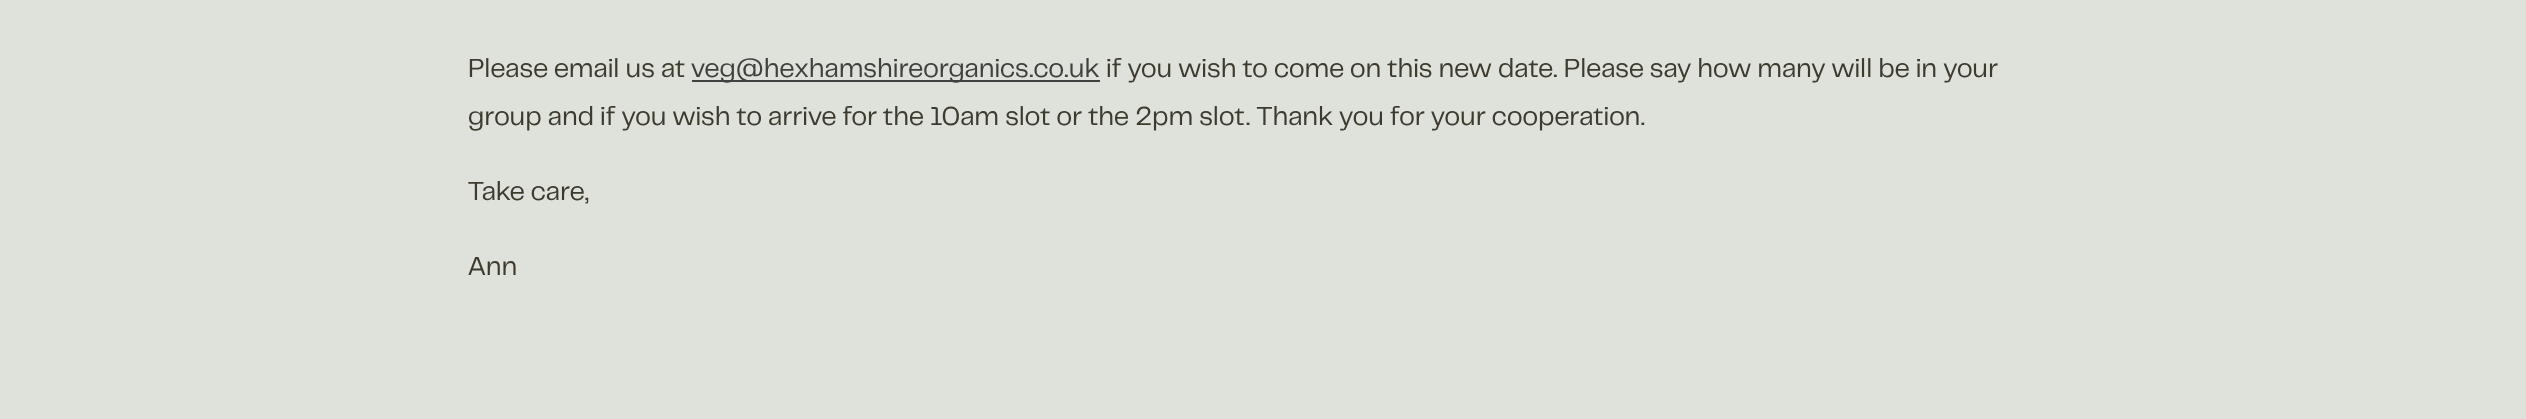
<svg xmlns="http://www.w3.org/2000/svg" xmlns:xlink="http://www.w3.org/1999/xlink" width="2526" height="419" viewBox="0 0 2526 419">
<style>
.cls-1{font:27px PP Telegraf;fill:#3c3b2e}
.cls-2{font:27px PP Telegraf;fill:#40413f}
</style>
<rect width="100%" height="100%" fill="#dfe2db"/>
<rect fill="#414240" x="692" y="80" width="408" height="2"/>
<text class="cls-1" x="468" y="77">Please email us at</text>
<text class="cls-2" x="691" y="77">veg@hexhamshireorganics.co.uk</text>
<text class="cls-1" x="1106" y="77">if you wish to come on this new date. Please say how many will be in your</text>
<text class="cls-1" x="468" y="125">group and if you wish to arrive for the 10am slot or the 2pm slot. Thank you for your cooperation.</text>
<text class="cls-1" x="468" y="200">Take care,</text>
<text class="cls-1" x="468" y="275">Ann</text>
</svg>
